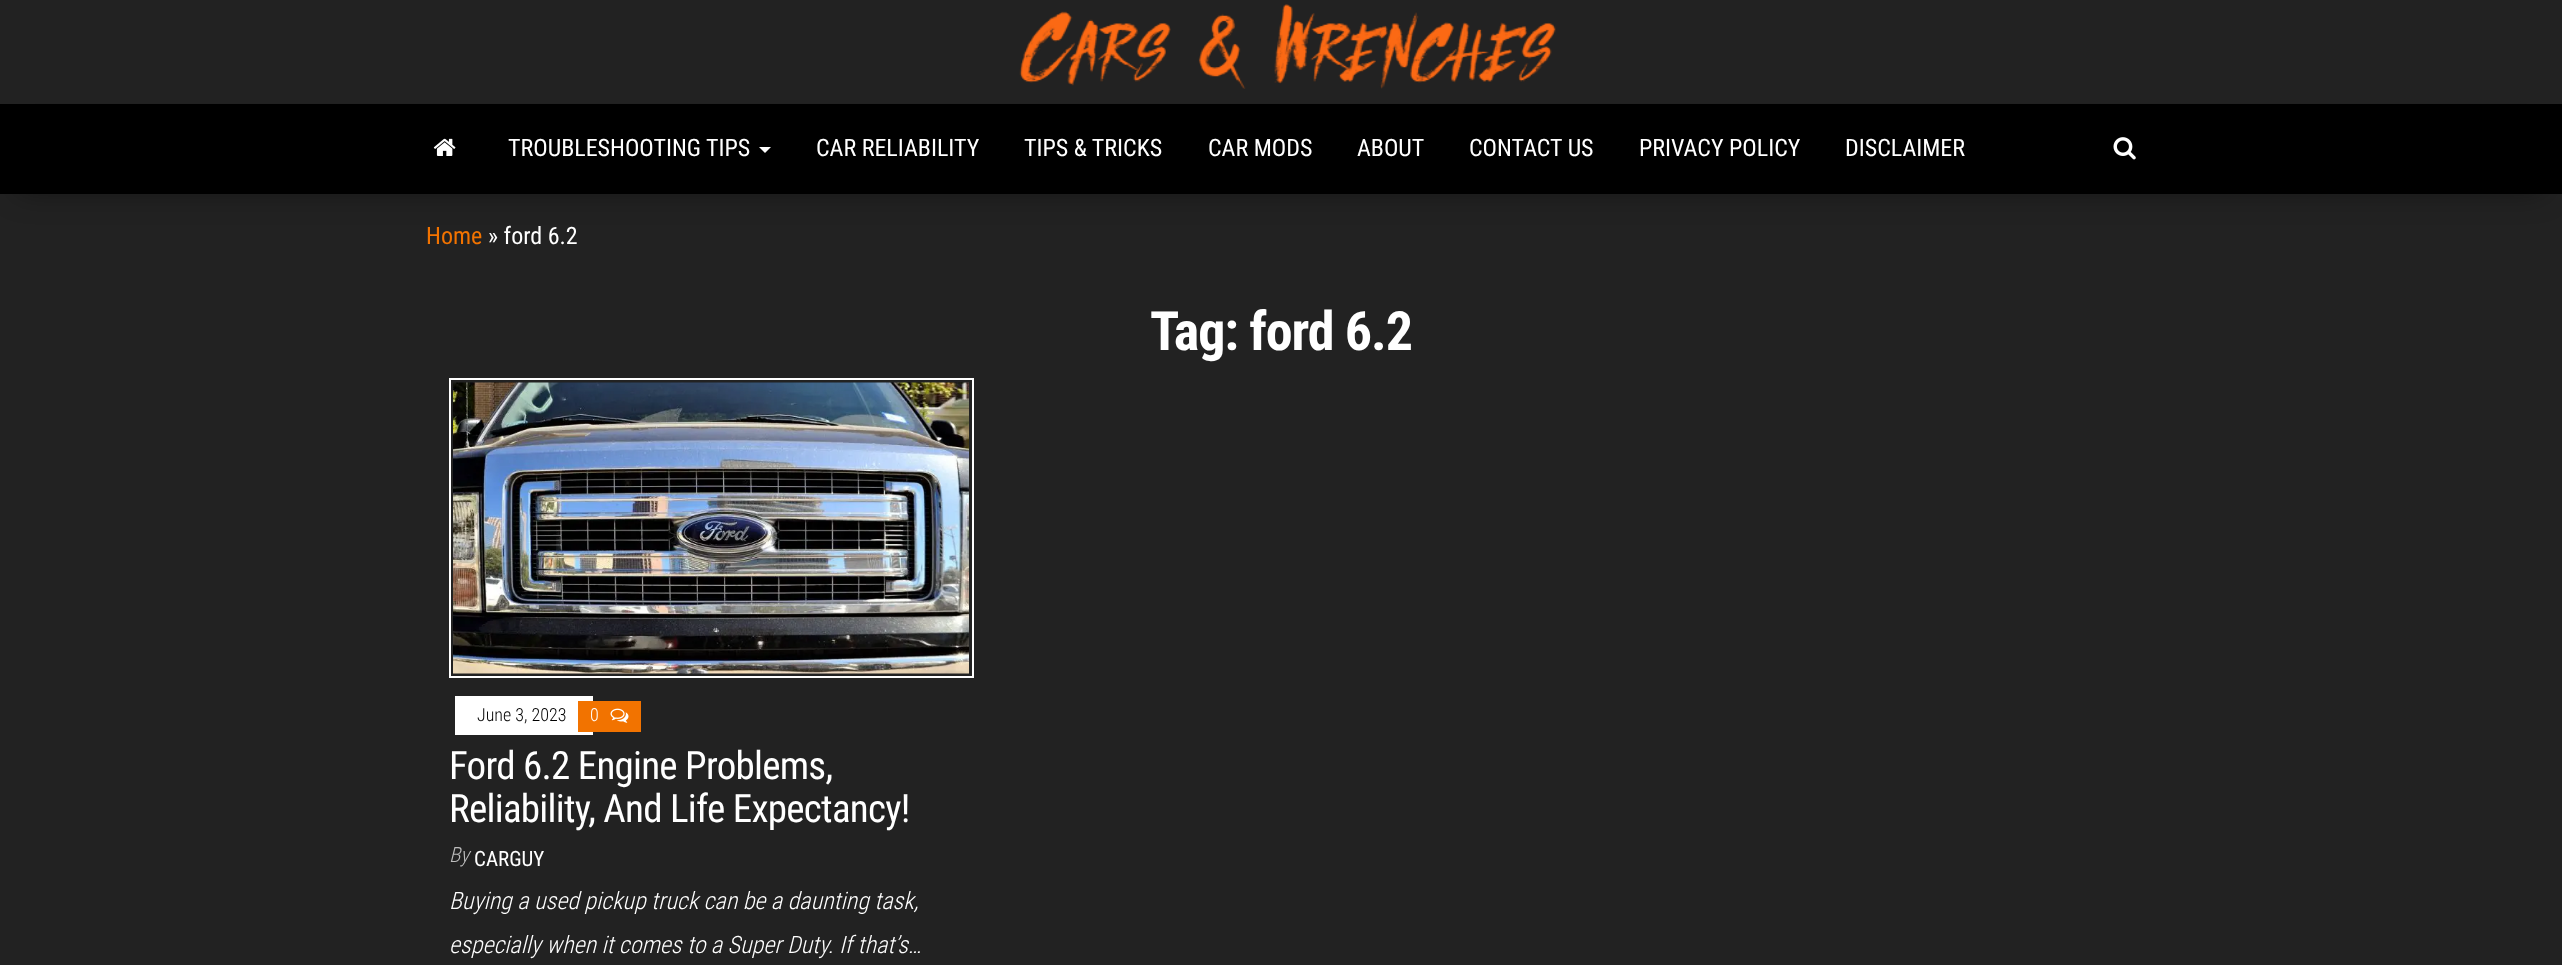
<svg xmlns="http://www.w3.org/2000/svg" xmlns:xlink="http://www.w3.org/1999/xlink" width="2562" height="965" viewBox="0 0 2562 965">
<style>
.cls-1{font:24px Roboto Condensed;fill:#ffffff}
.cls-2{font:24px Roboto Condensed;fill:#f27300}
.cls-3{font:bold 54px Roboto Condensed;letter-spacing:-1.1px;fill:#ffffff}
.cls-4{font:300 18px Roboto Condensed;fill:#000000}
.cls-5{font:300 18px Roboto Condensed;fill:#ffffff}
.cls-6{font:39px Roboto Condensed;letter-spacing:-0.75px;fill:#ffffff}
.cls-7{font:italic 300 21px Roboto Condensed;fill:#bdbdbd}
.cls-8{font:21px Roboto Condensed;fill:#ffffff}
.cls-9{font:italic 300 24px Roboto Condensed;fill:#ffffff}
</style>
<rect width="100%" height="100%" fill="#222222"/>
<image xlink:href="image0.png" x="1019" y="4" width="537" height="85"/>
<rect fill="#000000" fill-opacity="0.42" filter="blur(15px)" x="18" y="137" width="2526" height="54"/>
<rect fill="#000000" x="0" y="104" width="2562" height="90"/>
<image xlink:href="image1.png" x="433" y="138" width="23" height="18"/>
<path fill="#ffffff" d="M759 147H771L765 153Z"/>
<image xlink:href="image2.png" x="2113" y="137" width="23" height="23"/>
<rect fill="none" stroke="#ffffff" stroke-width="2" x="450" y="379" width="523" height="298"/>
<image xlink:href="image3.png" x="453" y="382" width="516" height="292"/>
<rect fill="#ffffff" x="455" y="696" width="138" height="39"/>
<rect fill="#f27300" x="578" y="701" width="63" height="31"/>
<image xlink:href="image4.png" x="610" y="708" width="19" height="15"/>
<text class="cls-1" x="508" y="156">TROUBLESHOOTING TIPS</text>
<text class="cls-1" x="816" y="156">CAR RELIABILITY</text>
<text class="cls-1" x="1024" y="156">TIPS &amp; TRICKS</text>
<text class="cls-1" x="1208" y="156">CAR MODS</text>
<text class="cls-1" x="1357" y="156">ABOUT</text>
<text class="cls-1" x="1469" y="156">CONTACT US</text>
<text class="cls-1" x="1639" y="156">PRIVACY POLICY</text>
<text class="cls-1" x="1845" y="156">DISCLAIMER</text>
<text class="cls-2" x="426" y="244">Home</text>
<text class="cls-1" x="488" y="244">» ford 6.2</text>
<text class="cls-3" x="1150" y="350">Tag: ford 6.2</text>
<text class="cls-4" x="477" y="721">June 3, 2023</text>
<text class="cls-5" x="590" y="721">0</text>
<text class="cls-6"><tspan x="449" y="779">Ford 6.2 Engine Problems,</tspan><tspan x="449" y="822">Reliability, And Life Expectancy!</tspan></text>
<text class="cls-7" x="449" y="862">By</text>
<text class="cls-8" x="474" y="866">CARGUY</text>
<text class="cls-9"><tspan x="449" y="909">Buying a used pickup truck can be a daunting task,</tspan><tspan x="449" y="953">especially when it comes to a Super Duty. If that’s…</tspan></text>
</svg>
